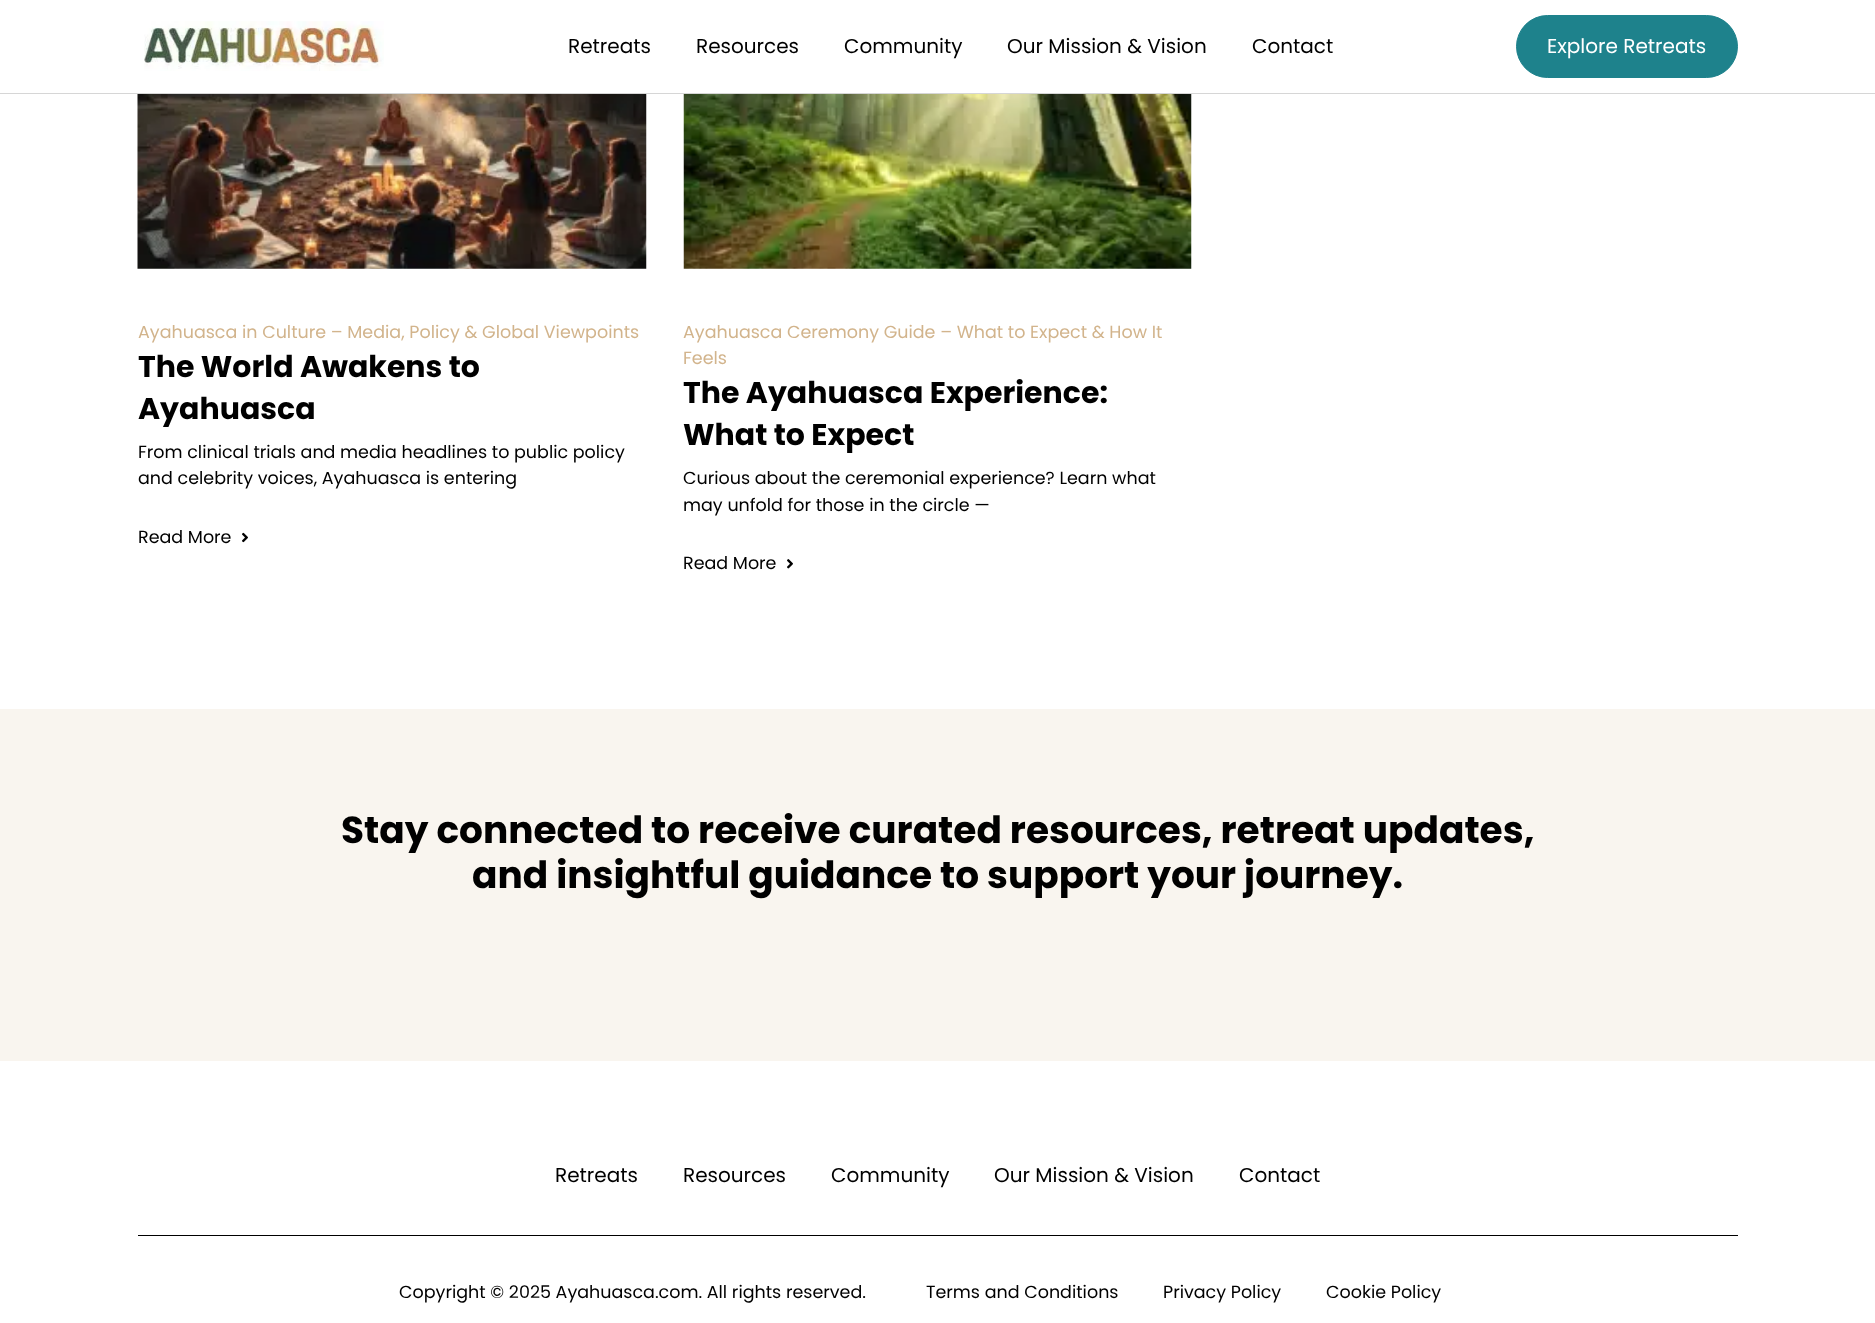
<svg xmlns="http://www.w3.org/2000/svg" xmlns:xlink="http://www.w3.org/1999/xlink" width="1875" height="1323" viewBox="0 0 1875 1323">
<style>
.cls-1{font:20px Poppins;fill:#000000}
.cls-2{font:20px Poppins;fill:#ffffff}
.cls-3{font:17.5px Poppins;fill:#d2b48c}
.cls-4{font:bold 30px Poppins;fill:#000000}
.cls-5{font:17.5px Poppins;fill:#000000}
.cls-6{font:bold 37.5px Poppins;fill:#000000}
</style>
<rect width="100%" height="100%" fill="#ffffff"/>
<rect fill="#d6d6d6" x="0" y="93" width="1875" height="1"/>
<image xlink:href="image0.png" x="144" y="21" width="240" height="50"/>
<rect fill="#1e828c" stroke="#1e828c" x="1516.5" y="15.5" width="221" height="62" rx="31"/>
<image xlink:href="image1.png" x="137" y="94" width="510" height="175"/>
<image xlink:href="image2.png" x="242" y="532" width="6" height="11"/>
<image xlink:href="image3.png" x="683" y="94" width="509" height="175"/>
<image xlink:href="image4.png" x="787" y="559" width="6" height="10"/>
<rect fill="#f9f5ef" x="0" y="709" width="1875" height="352"/>
<rect fill="#000000" x="138" y="1235" width="1600" height="1"/>
<text class="cls-1" x="568" y="53">Retreats</text>
<text class="cls-1" x="696" y="53">Resources</text>
<text class="cls-1" x="844" y="53">Community</text>
<text class="cls-1" x="1007" y="53">Our Mission &amp; Vision</text>
<text class="cls-1" x="1252" y="53">Contact</text>
<text class="cls-2" x="1547" y="53">Explore Retreats</text>
<text class="cls-3" x="138" y="338">Ayahuasca in Culture – Media, Policy &amp; Global Viewpoints</text>
<text class="cls-4"><tspan x="138" y="377">The World Awakens to</tspan><tspan x="138" y="419">Ayahuasca</tspan></text>
<text class="cls-5"><tspan x="138" y="458">From clinical trials and media headlines to public policy</tspan><tspan x="138" y="484">and celebrity voices, Ayahuasca is entering</tspan></text>
<text class="cls-5" x="138" y="543">Read More</text>
<text class="cls-3"><tspan x="683" y="338">Ayahuasca Ceremony Guide – What to Expect &amp; How It</tspan><tspan x="683" y="364">Feels</tspan></text>
<text class="cls-4"><tspan x="683" y="403">The Ayahuasca Experience:</tspan><tspan x="683" y="445">What to Expect</tspan></text>
<text class="cls-5"><tspan x="683" y="484">Curious about the ceremonial experience? Learn what</tspan><tspan x="683" y="511">may unfold for those in the circle —</tspan></text>
<text class="cls-5" x="683" y="569">Read More</text>
<text class="cls-6" x="341" y="843">Stay connected to receive curated resources, retreat updates,</text>
<text class="cls-6" x="472" y="888">and insightful guidance to support your journey.</text>
<text class="cls-1" x="555" y="1182">Retreats</text>
<text class="cls-1" x="683" y="1182">Resources</text>
<text class="cls-1" x="831" y="1182">Community</text>
<text class="cls-1" x="994" y="1182">Our Mission &amp; Vision</text>
<text class="cls-1" x="1239" y="1182">Contact</text>
<text class="cls-5" x="399" y="1298">Copyright © 2025 Ayahuasca.com. All rights reserved.</text>
<text class="cls-5" x="926" y="1298">Terms and Conditions</text>
<text class="cls-5" x="1163" y="1298">Privacy Policy</text>
<text class="cls-5" x="1326" y="1298">Cookie Policy</text>
</svg>
